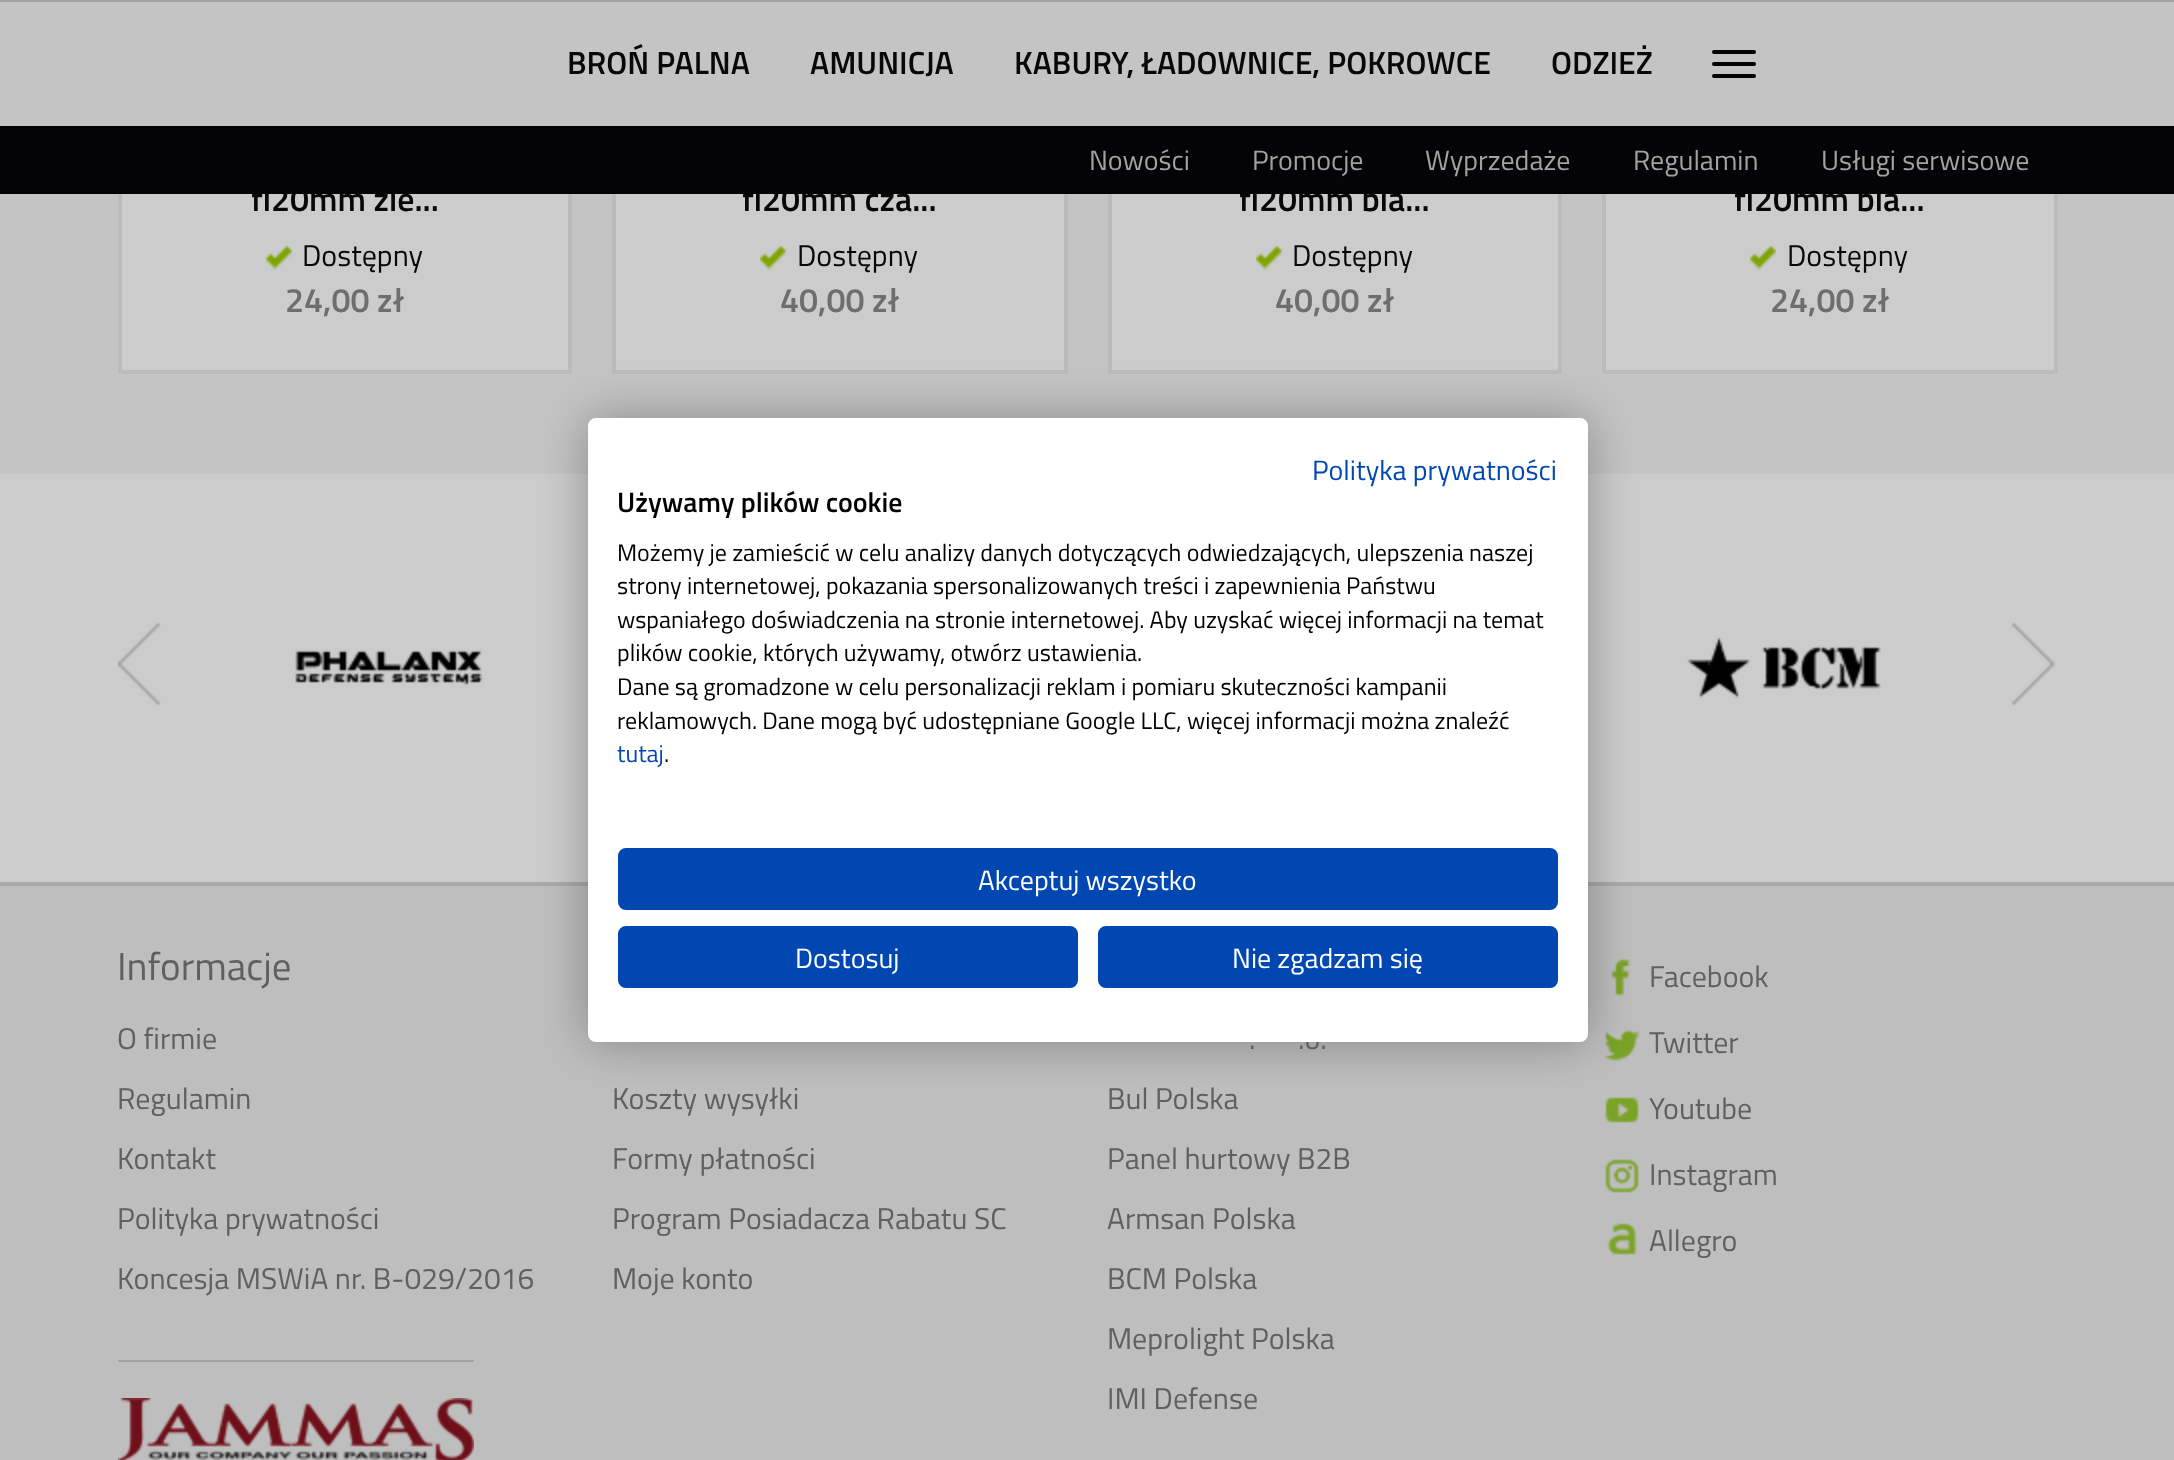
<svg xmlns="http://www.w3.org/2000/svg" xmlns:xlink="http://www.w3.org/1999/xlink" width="2174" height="1460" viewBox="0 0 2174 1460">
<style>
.cls-1{font:600 32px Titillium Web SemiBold;fill:#080807}
.cls-2{font:600 34px Titillium Web SemiBold;fill:#080807}
.cls-3{font:30px Titillium Web;fill:#080807}
.cls-4{font:600 34px Titillium Web SemiBold;fill:#6e6e6e}
.cls-5{font:28px Titillium Web;fill:#a2a2a2}
.cls-6{font:39px Titillium Web;fill:#606060}
.cls-7{font:30px Titillium Web;fill:#606060}
.cls-8{font:28px Titillium Web;fill:#0047b2}
.cls-9{font:600 28px Titillium Web SemiBold;fill:#000000}
.cls-10{font:24px Titillium Web;fill:#000000}
.cls-11{font:24px Titillium Web;fill:#0047b2}
.cls-12{font:28px Titillium Web;fill:#ffffff}
</style>
<rect width="100%" height="100%" fill="#c4c4c4"/>
<rect fill="#cccccc" x="122" y="194" width="446" height="176"/>
<rect fill="none" stroke="#bbbbbb" stroke-width="4" x="120" y="-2" width="450" height="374"/>
<rect fill="#cccccc" x="616" y="194" width="448" height="176"/>
<rect fill="none" stroke="#bbbbbb" stroke-width="4" x="614" y="-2" width="452" height="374"/>
<rect fill="#cccccc" x="1112" y="194" width="446" height="176"/>
<rect fill="none" stroke="#bbbbbb" stroke-width="4" x="1110" y="-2" width="450" height="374"/>
<rect fill="#cccccc" x="1606" y="194" width="448" height="176"/>
<rect fill="none" stroke="#bbbbbb" stroke-width="4" x="1604" y="-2" width="452" height="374"/>
<rect fill="#c4c4c4" x="118" y="2" width="1940" height="124"/>
<rect fill="#a2a2a2" x="0" y="0" width="2174" height="2"/>
<rect fill="#040407" x="1712" y="50" width="44" height="4" rx="2"/>
<rect fill="#040407" x="1712" y="62" width="44" height="4" rx="2"/>
<rect fill="#040407" x="1712" y="74" width="44" height="4" rx="2"/>
<image xlink:href="image0.png" x="266" y="246" width="26" height="24"/>
<image xlink:href="image0.png" x="760" y="246" width="26" height="24"/>
<image xlink:href="image0.png" x="1256" y="246" width="26" height="24"/>
<image xlink:href="image0.png" x="1750" y="246" width="26" height="24"/>
<rect fill="#cccccc" x="0" y="474" width="2174" height="408"/>
<image xlink:href="image1.png" x="118" y="622" width="43" height="84"/>
<image xlink:href="image2.png" x="295" y="649" width="188" height="36"/>
<image xlink:href="image3.png" x="1687" y="637" width="194" height="62"/>
<image xlink:href="image4.png" x="2012" y="622" width="44" height="84"/>
<rect fill="#bebebe" x="0" y="886" width="2174" height="574"/>
<rect fill="#aaaaaa" x="0" y="882" width="2174" height="4"/>
<rect fill="#a3a3a3" x="118" y="1360" width="356" height="2"/>
<image xlink:href="image5.png" x="118" y="1398" width="356" height="62"/>
<image xlink:href="image6.png" x="1611" y="959" width="20" height="38"/>
<image xlink:href="image7.png" x="1603" y="1029" width="38" height="32"/>
<image xlink:href="image8.png" x="1605" y="1097" width="34" height="26"/>
<image xlink:href="image9.png" x="1605" y="1159" width="34" height="34"/>
<image xlink:href="image10.png" x="1607" y="1223" width="30" height="32"/>
<rect fill="#000000" fill-opacity="0.3" filter="blur(24px)" x="588" y="418" width="1000" height="624" rx="8"/>
<text class="cls-1" x="567" y="74">BROŃ PALNA</text>
<text class="cls-1" x="810" y="74">AMUNICJA</text>
<text class="cls-1" x="1014" y="74">KABURY, ŁADOWNICE, POKROWCE</text>
<text class="cls-1" x="1551" y="74">ODZIEŻ</text>
<text class="cls-2" x="251" y="211">fi20mm zie...</text>
<text class="cls-3" x="302" y="266">Dostępny</text>
<text class="cls-4" x="285" y="312">24,00 zł</text>
<text class="cls-2" x="742" y="211">fi20mm cza...</text>
<text class="cls-3" x="797" y="266">Dostępny</text>
<text class="cls-4" x="780" y="312">40,00 zł</text>
<text class="cls-2" x="1239" y="211">fi20mm bia...</text>
<text class="cls-3" x="1292" y="266">Dostępny</text>
<text class="cls-4" x="1275" y="312">40,00 zł</text>
<text class="cls-2" x="1734" y="211">fi20mm bia...</text>
<rect fill="#040407" x="0" y="126" width="2174" height="68"/>
<text class="cls-5" x="1821" y="170">Usługi serwisowe</text>
<text class="cls-5" x="1633" y="170">Regulamin</text>
<text class="cls-5" x="1425" y="170">Wyprzedaże</text>
<text class="cls-5" x="1252" y="170">Promocje</text>
<text class="cls-5" x="1089" y="170">Nowości</text>
<text class="cls-3" x="1787" y="266">Dostępny</text>
<text class="cls-4" x="1770" y="312">24,00 zł</text>
<text class="cls-6" x="117" y="980">Informacje</text>
<text class="cls-7" x="117" y="1049">O firmie</text>
<text class="cls-7" x="117" y="1109">Regulamin</text>
<text class="cls-7" x="117" y="1169">Kontakt</text>
<text class="cls-7" x="117" y="1229">Polityka prywatności</text>
<text class="cls-7" x="117" y="1289">Koncesja MSWiA nr. B-029/2016</text>
<text class="cls-7" x="612" y="1109">Koszty wysyłki</text>
<text class="cls-7" x="612" y="1169">Formy płatności</text>
<text class="cls-7" x="612" y="1229">Program Posiadacza Rabatu SC</text>
<text class="cls-7" x="612" y="1289">Moje konto</text>
<text class="cls-7" x="1249" y="1049">.</text>
<text class="cls-7" x="1298" y="1049">.o.</text>
<text class="cls-7" x="1107" y="1109">Bul Polska</text>
<text class="cls-7" x="1107" y="1169">Panel hurtowy B2B</text>
<text class="cls-7" x="1107" y="1229">Armsan Polska</text>
<text class="cls-7" x="1107" y="1289">BCM Polska</text>
<text class="cls-7" x="1107" y="1349">Meprolight Polska</text>
<text class="cls-7" x="1107" y="1409">IMI Defense</text>
<text class="cls-7" x="1649" y="987">Facebook</text>
<text class="cls-7" x="1649" y="1053">Twitter</text>
<text class="cls-7" x="1649" y="1119">Youtube</text>
<text class="cls-7" x="1649" y="1185">Instagram</text>
<text class="cls-7" x="1649" y="1251">Allegro</text>
<rect fill="#ffffff" x="588" y="418" width="1000" height="624" rx="8"/>
<text class="cls-8" x="1312" y="480">Polityka prywatności</text>
<text class="cls-9" x="617" y="512">Używamy plików cookie</text>
<text class="cls-10"><tspan x="617" y="561">Możemy je zamieścić w celu analizy danych dotyczących odwiedzających, ulepszenia naszej</tspan><tspan x="617" y="594">strony internetowej, pokazania spersonalizowanych treści i zapewnienia Państwu</tspan><tspan x="617" y="628">wspaniałego doświadczenia na stronie internetowej. Aby uzyskać więcej informacji na temat</tspan><tspan x="617" y="661">plików cookie, których używamy, otwórz ustawienia.</tspan><tspan x="617" y="695">Dane są gromadzone w celu personalizacji reklam i pomiaru skuteczności kampanii</tspan><tspan x="617" y="729">reklamowych. Dane mogą być udostępniane Google LLC, więcej informacji można znaleźć</tspan></text>
<text class="cls-11" x="617" y="762">tutaj</text>
<text class="cls-10" x="664" y="762">.</text>
<rect fill="#0047b2" stroke="#0047b2" stroke-width="2" x="619" y="849" width="938" height="60" rx="7"/>
<text class="cls-12" x="978" y="890">Akceptuj wszystko</text>
<rect fill="#0047b2" stroke="#0047b2" stroke-width="2" x="619" y="927" width="458" height="60" rx="7"/>
<text class="cls-12" x="795" y="968">Dostosuj</text>
<rect fill="#0047b2" stroke="#0047b2" stroke-width="2" x="1099" y="927" width="458" height="60" rx="7"/>
<text class="cls-12" x="1232" y="968">Nie zgadzam się</text>
</svg>
